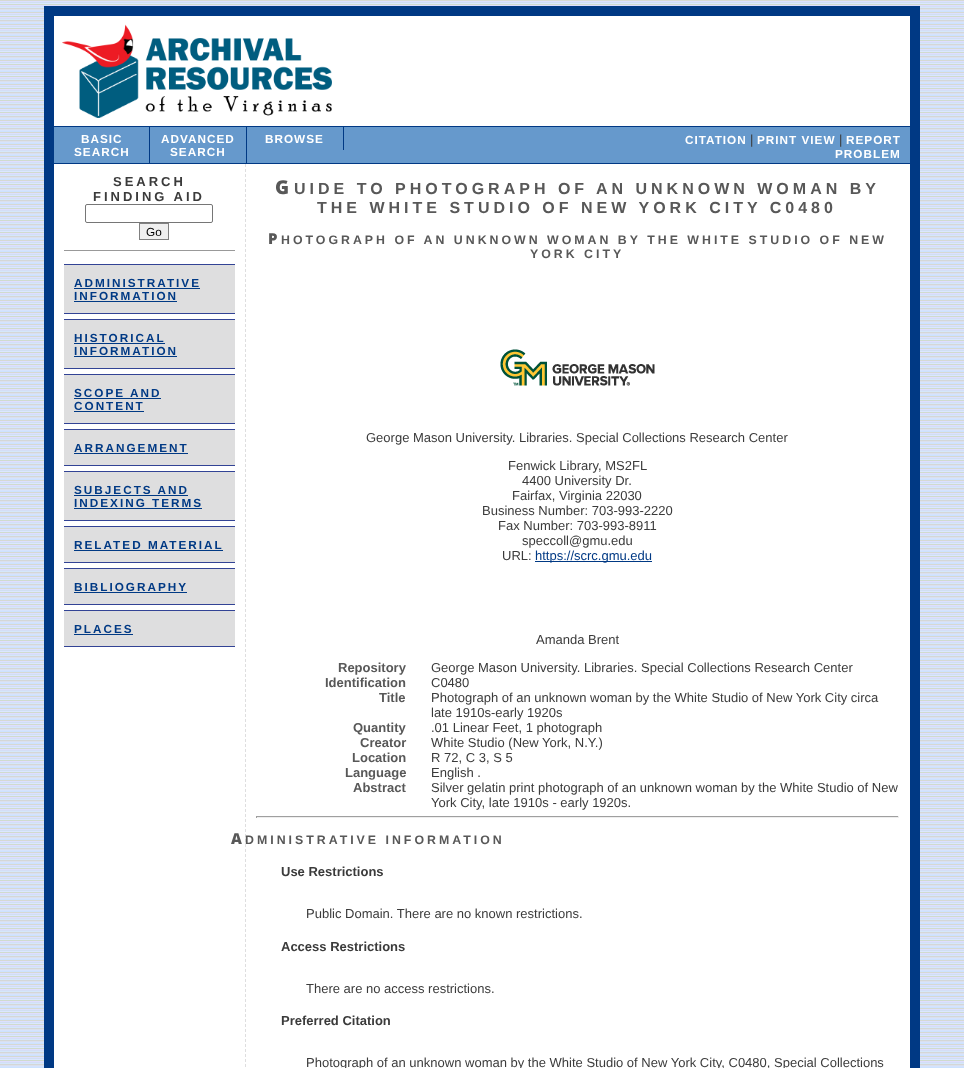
<svg xmlns="http://www.w3.org/2000/svg" xmlns:xlink="http://www.w3.org/1999/xlink" width="964" height="1068" viewBox="0 0 964 1068">
<style>
.cls-1{font:bold 11.75px Liberation Sans;letter-spacing:1px;fill:#ffffff}
.cls-2{font:13px Liberation Sans;fill:#3b3b3b}
.cls-3{font:bold 13px Liberation Sans;letter-spacing:3px;fill:#3b3b3b}
.cls-4{font:11.75px Liberation Sans;fill:#000000}
.cls-5{font:bold 11.75px Liberation Sans;letter-spacing:2px;fill:#003984}
.cls-6{font:900 19px Noto Sans;letter-spacing:4px;fill:#585858}
.cls-7{font:bold 16px Liberation Sans;letter-spacing:4px;fill:#585858}
.cls-8{font:900 15px Noto Sans;letter-spacing:3px;fill:#585858}
.cls-9{font:bold 12.35px Liberation Sans;letter-spacing:3px;fill:#585858}
.cls-10{font:13px Liberation Sans;fill:#003984}
.cls-11{font:bold 13px Liberation Sans;fill:#585858}
.cls-12{font:bold 13px Liberation Sans;fill:#3b3b3b}
</style>
<rect width="100%" height="100%" fill="#ffffff"/>
<image xlink:href="image0.png" x="0" y="0" width="964" height="1068"/>
<rect fill="#ffffff" stroke="#003984" stroke-width="10" x="49" y="11" width="866" height="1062"/>
<image xlink:href="image1.png" x="62" y="24" width="270" height="94"/>
<rect fill="#6699cc" x="54" y="127" width="856" height="36"/>
<rect fill="#003984" x="54" y="126" width="856" height="1"/>
<rect fill="#003984" x="54" y="163" width="856" height="1"/>
<rect fill="#003984" x="149" y="127" width="1" height="36"/>
<rect fill="#003984" x="246" y="127" width="1" height="36"/>
<rect fill="#003984" x="343" y="127" width="1" height="23"/>
<rect fill="#999999" x="64" y="250" width="171" height="1"/>
<rect fill="none" stroke="#767676" x="85.5" y="204.5" width="127" height="18" rx="1.5"/>
<rect fill="#efefef" stroke="#808080" x="139.5" y="223.5" width="29" height="16"/>
<rect fill="#dededf" x="64" y="265" width="171" height="48"/>
<rect fill="#324395" x="64" y="264" width="171" height="1"/>
<rect fill="#324395" x="64" y="313" width="171" height="1"/>
<rect fill="#003984" x="74" y="288" width="126" height="1"/>
<rect fill="#003984" x="74" y="301" width="103" height="1"/>
<rect fill="#dededf" x="64" y="320" width="171" height="48"/>
<rect fill="#324395" x="64" y="319" width="171" height="1"/>
<rect fill="#324395" x="64" y="368" width="171" height="1"/>
<rect fill="#003984" x="74" y="343" width="91" height="1"/>
<rect fill="#003984" x="74" y="356" width="103" height="1"/>
<rect fill="#dededf" x="64" y="375" width="171" height="48"/>
<rect fill="#324395" x="64" y="374" width="171" height="1"/>
<rect fill="#324395" x="64" y="423" width="171" height="1"/>
<rect fill="#003984" x="74" y="398" width="87" height="1"/>
<rect fill="#003984" x="74" y="411" width="70" height="1"/>
<rect fill="#dededf" x="64" y="430" width="171" height="35"/>
<rect fill="#324395" x="64" y="429" width="171" height="1"/>
<rect fill="#324395" x="64" y="465" width="171" height="1"/>
<rect fill="#003984" x="74" y="453" width="114" height="1"/>
<rect fill="#dededf" x="64" y="472" width="171" height="48"/>
<rect fill="#324395" x="64" y="471" width="171" height="1"/>
<rect fill="#324395" x="64" y="520" width="171" height="1"/>
<rect fill="#003984" x="74" y="495" width="114" height="1"/>
<rect fill="#003984" x="74" y="508" width="128" height="1"/>
<rect fill="#dededf" x="64" y="527" width="171" height="35"/>
<rect fill="#324395" x="64" y="526" width="171" height="1"/>
<rect fill="#324395" x="64" y="562" width="171" height="1"/>
<rect fill="#003984" x="74" y="550" width="149" height="1"/>
<rect fill="#dededf" x="64" y="569" width="171" height="35"/>
<rect fill="#324395" x="64" y="568" width="171" height="1"/>
<rect fill="#324395" x="64" y="604" width="171" height="1"/>
<rect fill="#003984" x="74" y="592" width="113" height="1"/>
<rect fill="#dededf" x="64" y="611" width="171" height="35"/>
<rect fill="#324395" x="64" y="610" width="171" height="1"/>
<rect fill="#324395" x="64" y="646" width="171" height="1"/>
<rect fill="#003984" x="74" y="634" width="59" height="1"/>
<path fill="none" stroke="#dededf" stroke-dasharray="3 2" d="M245.5 164V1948"/>
<image xlink:href="image2.png" x="500" y="349" width="155" height="37"/>
<rect fill="#003984" x="535" y="561" width="117" height="1"/>
<rect fill="#9f9f9f" x="256" y="816" width="643" height="1"/>
<rect fill="#eeeeee" x="898" y="816" width="1" height="2"/>
<rect fill="#eeeeee" x="256" y="817" width="643" height="1"/>
<rect fill="#9f9f9f" x="256" y="816" width="1" height="2"/>
<text class="cls-1" x="81" y="143">BASIC</text>
<text class="cls-1" x="74" y="156">SEARCH</text>
<text class="cls-1" x="161" y="143">ADVANCED</text>
<text class="cls-1" x="170" y="156">SEARCH</text>
<text class="cls-1" x="265" y="143">BROWSE</text>
<text class="cls-1" x="685" y="144">CITATION</text>
<text class="cls-2" x="750" y="144">|</text>
<text class="cls-1" x="757" y="144">PRINT VIEW</text>
<text class="cls-2" x="839" y="144">|</text>
<text class="cls-1" x="846" y="144">REPORT</text>
<text class="cls-1" x="835" y="158">PROBLEM</text>
<text class="cls-3" x="113" y="186">SEARCH</text>
<text class="cls-3" x="93" y="201">FINDING AID</text>
<text class="cls-4" x="146" y="236">Go</text>
<text class="cls-5"><tspan x="74" y="287">ADMINISTRATIVE</tspan><tspan x="74" y="300">INFORMATION</tspan></text>
<text class="cls-5"><tspan x="74" y="342">HISTORICAL</tspan><tspan x="74" y="355">INFORMATION</tspan></text>
<text class="cls-5"><tspan x="74" y="397">SCOPE AND</tspan><tspan x="74" y="410">CONTENT</tspan></text>
<text class="cls-5" x="74" y="452">ARRANGEMENT</text>
<text class="cls-5"><tspan x="74" y="494">SUBJECTS AND</tspan><tspan x="74" y="507">INDEXING TERMS</tspan></text>
<text class="cls-5" x="74" y="549">RELATED MATERIAL</text>
<text class="cls-5" x="74" y="591">BIBLIOGRAPHY</text>
<text class="cls-5" x="74" y="633">PLACES</text>
<text class="cls-6" x="275" y="194">G</text>
<text class="cls-7" x="294" y="194">UIDE TO PHOTOGRAPH OF AN UNKNOWN WOMAN BY</text>
<text class="cls-7" x="317" y="213">THE WHITE STUDIO OF NEW YORK CITY C0480</text>
<text class="cls-8" x="268" y="244">P</text>
<text class="cls-9" x="281" y="244">HOTOGRAPH OF AN UNKNOWN WOMAN BY THE WHITE STUDIO OF NEW</text>
<text class="cls-9" x="530" y="258">YORK CITY</text>
<text class="cls-2" x="366" y="442">George Mason University. Libraries. Special Collections Research Center</text>
<text class="cls-2" x="508" y="470">Fenwick Library, MS2FL</text>
<text class="cls-2" x="522" y="485">4400 University Dr.</text>
<text class="cls-2" x="512" y="500">Fairfax, Virginia 22030</text>
<text class="cls-2" x="482" y="515">Business Number: 703-993-2220</text>
<text class="cls-2" x="498" y="530">Fax Number: 703-993-8911</text>
<text class="cls-2" x="522" y="545">speccoll@gmu.edu</text>
<text class="cls-2" x="502" y="560">URL:</text>
<text class="cls-10" x="535" y="560">https://scrc.gmu.edu</text>
<text class="cls-2" x="536" y="644">Amanda Brent</text>
<text class="cls-11" x="338" y="672">Repository</text>
<text class="cls-2" x="431" y="672">George Mason University. Libraries. Special Collections Research Center</text>
<text class="cls-11" x="325" y="687">Identification</text>
<text class="cls-2" x="431" y="687">C0480</text>
<text class="cls-11" x="379" y="702">Title</text>
<text class="cls-2"><tspan x="431" y="702">Photograph of an unknown woman by the White Studio of New York City circa</tspan><tspan x="431" y="717">late 1910s-early 1920s</tspan></text>
<text class="cls-11" x="353" y="732">Quantity</text>
<text class="cls-2" x="431" y="732">.01 Linear Feet, 1 photograph</text>
<text class="cls-11" x="360" y="747">Creator</text>
<text class="cls-2" x="431" y="747">White Studio (New York, N.Y.)</text>
<text class="cls-11" x="352" y="762">Location</text>
<text class="cls-2" x="431" y="762">R 72, C 3, S 5</text>
<text class="cls-11" x="345" y="777">Language</text>
<text class="cls-2" x="431" y="777">English .</text>
<text class="cls-11" x="353" y="792">Abstract</text>
<text class="cls-2"><tspan x="431" y="792">Silver gelatin print photograph of an unknown woman by the White Studio of New</tspan><tspan x="431" y="807">York City, late 1910s - early 1920s.</tspan></text>
<text class="cls-8" x="231" y="844">A</text>
<text class="cls-9" x="245" y="844">DMINISTRATIVE INFORMATION</text>
<text class="cls-12" x="281" y="876">Use Restrictions</text>
<text class="cls-2" x="306" y="918">Public Domain. There are no known restrictions.</text>
<text class="cls-12" x="281" y="951">Access Restrictions</text>
<text class="cls-2" x="306" y="993">There are no access restrictions.</text>
<text class="cls-12" x="281" y="1025">Preferred Citation</text>
<text class="cls-2" x="306" y="1067">Photograph of an unknown woman by the White Studio of New York City, C0480, Special Collections</text>
</svg>
